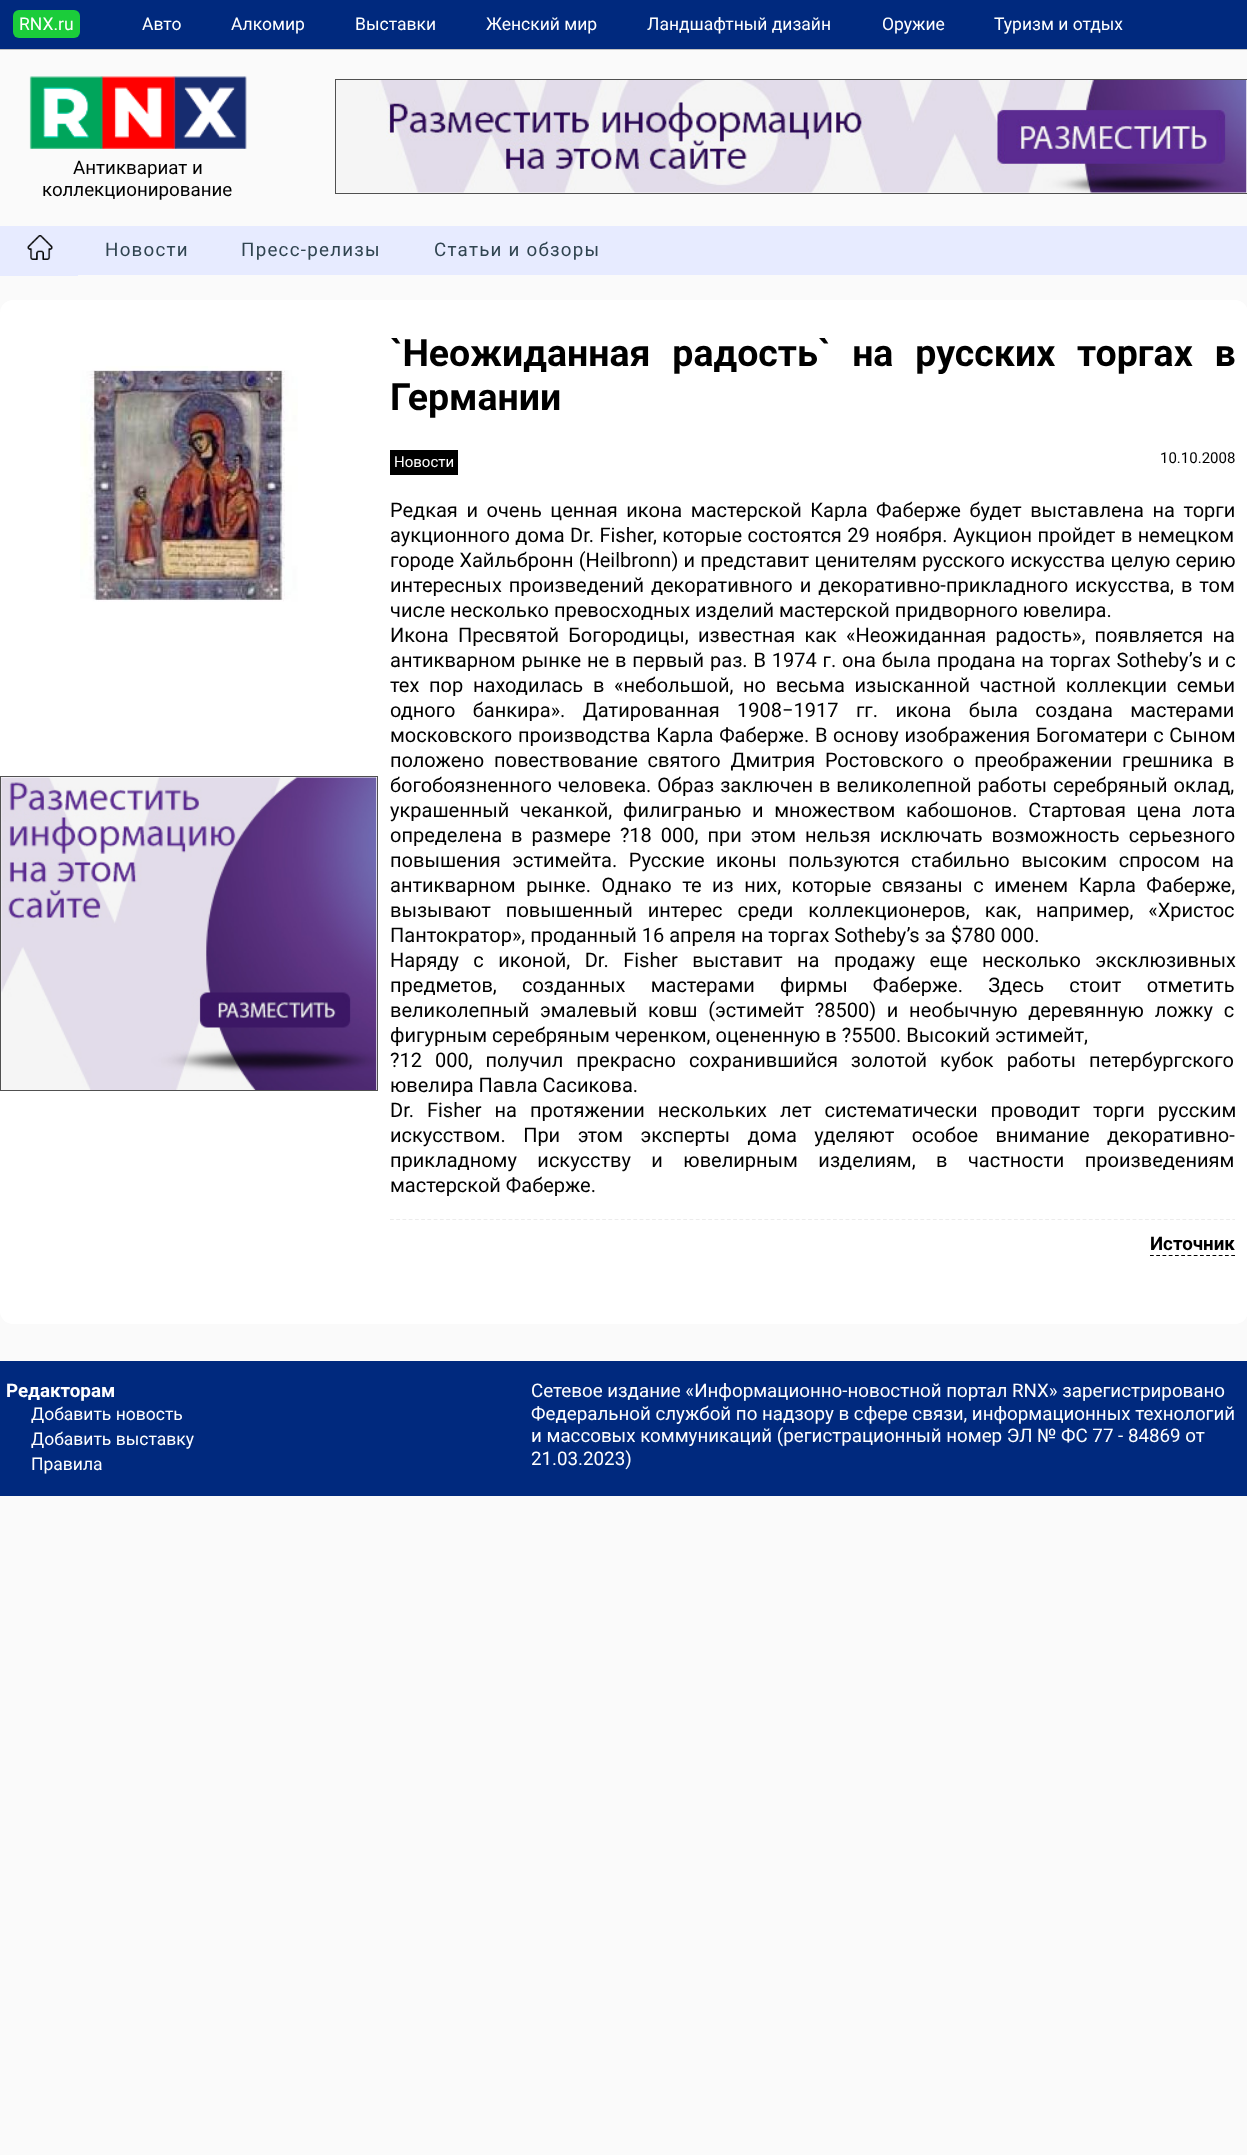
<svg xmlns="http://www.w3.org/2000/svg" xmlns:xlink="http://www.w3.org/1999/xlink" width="1247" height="2155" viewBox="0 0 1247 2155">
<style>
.cls-1{font:17.5px Roboto;fill:#ffffff}
.cls-2{font:18.75px Roboto;fill:#000000}
.cls-3{font:18.75px Roboto;letter-spacing:1.25px;fill:#304450}
.cls-4{font:bold 37.5px Roboto;fill:#000000}
.cls-5{font:15px Roboto;fill:#ffffff}
.cls-6{font:15px Roboto;fill:#000000}
.cls-7{font:20px Roboto;fill:#000000}
.cls-8{font:bold 18.75px Roboto;fill:#000000}
.cls-9{font:bold 18.75px Roboto;fill:#ffffff}
.cls-10{font:18.75px Roboto;fill:#ffffff}
</style>
<rect width="100%" height="100%" fill="#fafafa"/>
<rect fill="#00297e" x="0" y="0" width="1247" height="49"/>
<rect fill="#c0c0c0" x="0" y="49" width="1247" height="1"/>
<rect fill="#1bcc3a" x="13" y="10" width="67" height="28" rx="6"/>
<image xlink:href="image0.png" x="29" y="76" width="218" height="73"/>
<rect fill="none" stroke="#505050" x="335.5" y="79.5" width="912" height="114"/>
<image xlink:href="image1.png" x="336" y="80" width="911" height="113"/>
<rect fill="#e7ebff" x="0" y="226" width="1247" height="49"/>
<rect fill="#e7ebff" x="0" y="275" width="78" height="1"/>
<image xlink:href="image2.png" x="27" y="235" width="26" height="25"/>
<rect fill="#ffffff" x="0" y="300" width="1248" height="1024" rx="13"/>
<image xlink:href="image3.png" x="80" y="366" width="218" height="236"/>
<rect fill="none" stroke="#505050" x="0.5" y="776.5" width="377" height="314"/>
<image xlink:href="image4.png" x="1" y="777" width="376" height="313"/>
<rect fill="#000000" x="390" y="450" width="68" height="25"/>
<path fill="none" stroke="#ececec" stroke-width="1.2" stroke-dasharray="3.75 2.49" d="M390 1219.5H1235"/>
<path fill="none" stroke="#000000" stroke-width="1.2" stroke-dasharray="3.75 2.5" d="M1150 1255.5H1235"/>
<rect fill="#00297e" x="0" y="1361" width="1247" height="135"/>
<text class="cls-1" x="19" y="30">RNX.ru</text>
<text class="cls-1" x="142" y="30">Авто</text>
<text class="cls-1" x="231" y="30">Алкомир</text>
<text class="cls-1" x="355" y="30">Выставки</text>
<text class="cls-1" x="486" y="30">Женский мир</text>
<text class="cls-1" x="647" y="30">Ландшафтный дизайн</text>
<text class="cls-1" x="882" y="30">Оружие</text>
<text class="cls-1" x="994" y="30">Туризм и отдых</text>
<text class="cls-2" x="73" y="174">Антиквариат и</text>
<text class="cls-2" x="42" y="196">коллекционирование</text>
<text class="cls-3" x="105" y="256">Новости</text>
<text class="cls-3" x="241" y="256">Пресс-релизы</text>
<text class="cls-3" x="434" y="256">Статьи и обзоры</text>
<text class="cls-4"><tspan x="390" y="366" word-spacing="12.5">`Неожиданная радость` на русских торгах в</tspan><tspan x="390" y="410">Германии</tspan></text>
<text class="cls-5" x="394" y="467">Новости</text>
<text class="cls-6" x="1160" y="463">10.10.2008</text>
<text class="cls-7"><tspan x="390" y="517" word-spacing="3.6">Редкая и очень ценная икона мастерской Карла Фаберже будет выставлена на торги</tspan><tspan x="390" y="542" word-spacing="0.5">аукционного дома Dr. Fisher, которые состоятся 29 ноября. Аукцион пройдет в немецком</tspan><tspan x="390" y="567" word-spacing="0.25">городе Хайльбронн (Heilbronn) и представит ценителям русского искусства целую серию</tspan><tspan x="390" y="592" word-spacing="2">интересных произведений декоративного и декоративно-прикладного искусства, в том</tspan><tspan x="390" y="617">числе несколько превосходных изделий мастерской придворного ювелира.</tspan><tspan x="390" y="642" word-spacing="4.25">Икона Пресвятой Богородицы, известная как «Неожиданная радость», появляется на</tspan><tspan x="390" y="667" word-spacing="0.9">антикварном рынке не в первый раз. В 1974 г. она была продана на торгах Sotheby’s и с</tspan><tspan x="390" y="692" word-spacing="4.75">тех пор находилась в «небольшой, но весьма изысканной частной коллекции семьи</tspan><tspan x="390" y="717" word-spacing="12.5">одного банкира». Датированная 1908−1917 гг. икона была создана мастерами</tspan><tspan x="390" y="742" word-spacing="0.75">московского производства Карла Фаберже. В основу изображения Богоматери с Сыном</tspan><tspan x="390" y="767" word-spacing="4.75">положено повествование святого Дмитрия Ростовского о преображении грешника в</tspan><tspan x="390" y="792" word-spacing="1">богобоязненного человека. Образ заключен в великолепной работы серебряный оклад,</tspan><tspan x="390" y="817" word-spacing="5.75">украшенный чеканкой, филигранью и множеством кабошонов. Стартовая цена лота</tspan><tspan x="390" y="842" word-spacing="4">определена в размере ?18 000, при этом нельзя исключать возможность серьезного</tspan><tspan x="390" y="867" word-spacing="6.5">повышения эстимейта. Русские иконы пользуются стабильно высоким спросом на</tspan><tspan x="390" y="892" word-spacing="5.5">антикварном рынке. Однако те из них, которые связаны с именем Карла Фаберже,</tspan><tspan x="390" y="917" word-spacing="10">вызывают повышенный интерес среди коллекционеров, как, например, «Христос</tspan><tspan x="390" y="942">Пантократор», проданный 16 апреля на торгах Sotheby’s за $780 000.</tspan><tspan x="390" y="967" word-spacing="9.5">Наряду с иконой, Dr. Fisher выставит на продажу еще несколько эксклюзивных</tspan><tspan x="390" y="992" word-spacing="20.25">предметов, созданных мастерами фирмы Фаберже. Здесь стоит отметить</tspan><tspan x="390" y="1017" word-spacing="5.75">великолепный эмалевый ковш (эстимейт ?8500) и необычную деревянную ложку с</tspan><tspan x="390" y="1042">фигурным серебряным черенком, оцененную в ?5500. Высокий эстимейт,</tspan><tspan x="390" y="1067" word-spacing="8">?12 000, получил прекрасно сохранившийся золотой кубок работы петербургского</tspan><tspan x="390" y="1092">ювелира Павла Сасикова.</tspan><tspan x="390" y="1117" word-spacing="8">Dr. Fisher на протяжении нескольких лет систематически проводит торги русским</tspan><tspan x="390" y="1142" word-spacing="12.5">искусством. При этом эксперты дома уделяют особое внимание декоративно-</tspan><tspan x="390" y="1167" word-spacing="15.5">прикладному искусству и ювелирным изделиям, в частности произведениям</tspan><tspan x="390" y="1192">мастерской Фаберже.</tspan></text>
<text class="cls-8" x="1150" y="1250">Источник</text>
<text class="cls-9" x="6" y="1397">Редакторам</text>
<text class="cls-1"><tspan x="31" y="1420">Добавить новость</tspan><tspan x="31" y="1445">Добавить выставку</tspan><tspan x="31" y="1470">Правила</tspan></text>
<text class="cls-10"><tspan x="531" y="1397">Сетевое издание «Информационно-новостной портал RNX» зарегистрировано</tspan><tspan x="531" y="1420">Федеральной службой по надзору в сфере связи, информационных технологий</tspan><tspan x="531" y="1442">и массовых коммуникаций (регистрационный номер ЭЛ № ФС 77 - 84869 от</tspan><tspan x="531" y="1465">21.03.2023)</tspan></text>
</svg>
